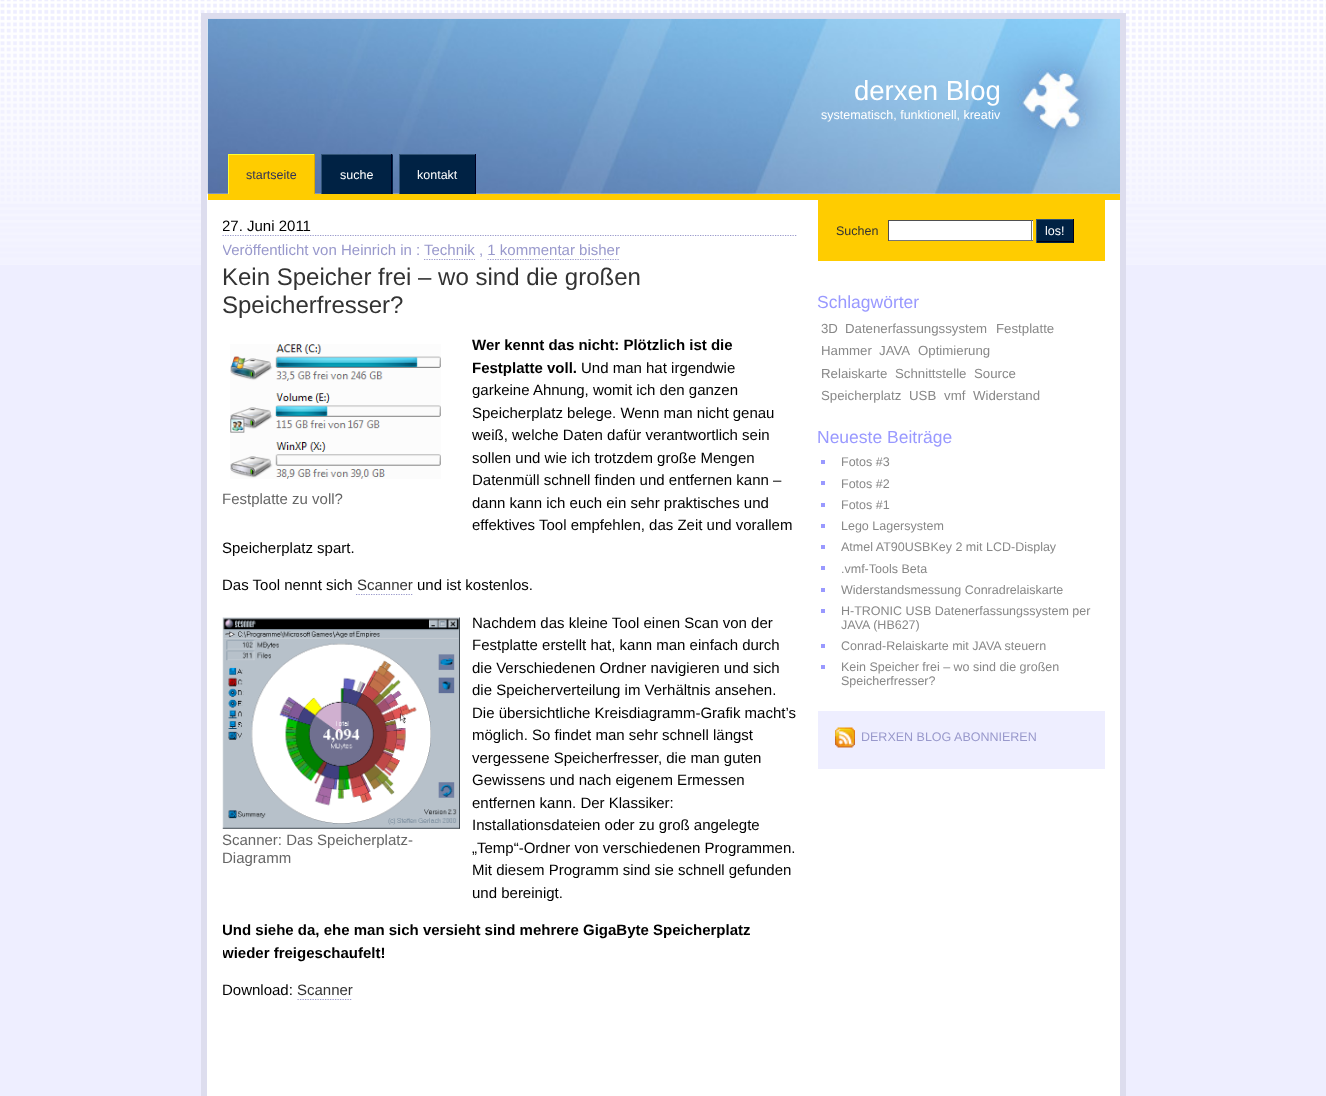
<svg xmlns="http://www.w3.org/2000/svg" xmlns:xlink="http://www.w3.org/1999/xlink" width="1326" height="1096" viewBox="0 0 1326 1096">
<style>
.cls-1{font:27.5px Liberation Sans;fill:#ffffff}
.cls-2{font:12.5px Liberation Sans;fill:#ffffff}
.cls-3{font:12.5px Liberation Sans;fill:#333355}
.cls-4{font:15px Liberation Sans;fill:#000000}
.cls-5{font:15px Liberation Sans;fill:#9999cc}
.cls-6{font:24px Liberation Sans;fill:#333333}
.cls-7{font:bold 15px Liberation Sans;fill:#000000}
.cls-8{font:15px Liberation Sans;fill:#666666}
.cls-9{font:15px Liberation Sans;fill:#333333}
.cls-10{font:12.5px Liberation Sans;fill:#333333}
.cls-11{font:17.5px Liberation Sans;fill:#9999ff}
.cls-12{font:13.25px Liberation Sans;fill:#888888}
.cls-13{font:12.5px Liberation Sans;fill:#888888}
.cls-14{font:12.5px Liberation Sans;fill:#9999cc}
</style>
<defs>
<clipPath id="clip1"><rect x="223" y="200" width="575" height="884"/></clipPath>
</defs>
<rect width="100%" height="100%" fill="#eeeeff"/>
<image xlink:href="image0.png" x="0" y="0" width="1326" height="265"/>
<rect fill="#ffffff" stroke="#ddddee" stroke-width="6" x="204" y="16" width="919" height="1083"/>
<image xlink:href="image1.png" x="207" y="18" width="913" height="176"/>
<rect fill="#ffcc00" x="208" y="194" width="912" height="6"/>
<rect fill="#ffcc00" x="229" y="155" width="85" height="39"/>
<rect fill="#ffff33" x="228" y="154" width="87" height="1"/>
<rect fill="#ddaa00" x="314" y="154" width="1" height="40"/>
<rect fill="#ffff33" x="228" y="154" width="1" height="40"/>
<rect fill="#002244" x="322" y="155" width="71" height="39"/>
<rect fill="#335577" x="321" y="154" width="72" height="1"/>
<rect fill="#000022" x="391" y="154" width="1" height="40"/>
<rect fill="#335577" x="321" y="154" width="1" height="40"/>
<rect fill="#002244" x="400" y="155" width="75" height="39"/>
<rect fill="#335577" x="399" y="154" width="77" height="1"/>
<rect fill="#000022" x="475" y="154" width="1" height="40"/>
<rect fill="#335577" x="399" y="154" width="1" height="40"/>
<path fill="none" stroke="#9999cc" stroke-width="1.2" stroke-dasharray="1.25 1.25" d="M222.5 235.5H797.5"/>
<path fill="none" stroke="#9999cc" stroke-width="1.2" stroke-dasharray="1.25 1.25" d="M424 259.5H475"/>
<path fill="none" stroke="#9999cc" stroke-width="1.2" stroke-dasharray="1.25 1.25" d="M487.5 259.5H620"/>
<image xlink:href="image2.png" x="230" y="344" width="211" height="135"/>
<path fill="none" stroke="#9999cc" stroke-width="1.2" stroke-dasharray="1.25 1.25" d="M356 594.5H412.5"/>
<image xlink:href="image3.png" x="222" y="617" width="238" height="212"/>
<path fill="none" stroke="#9999cc" stroke-width="1.2" stroke-dasharray="1.25 1.25" d="M297.5 999.5H352.5"/>
<rect fill="#ffcc00" x="818" y="200" width="287" height="61"/>
<rect fill="#ffffff" x="889" y="221" width="144" height="19"/>
<rect fill="#4f4f4f" x="888" y="220" width="145" height="1"/>
<rect fill="#767676" x="1031" y="220" width="1" height="21"/>
<rect fill="#767676" x="888" y="240" width="145" height="1"/>
<rect fill="#4f4f4f" x="888" y="220" width="1" height="21"/>
<rect fill="#002244" x="1037" y="220" width="36" height="23"/>
<rect fill="#335577" x="1036" y="219" width="38" height="1"/>
<rect fill="#000017" x="1073" y="219" width="1" height="24"/>
<rect fill="#000017" x="1036" y="241" width="38" height="1"/>
<rect fill="#335577" x="1036" y="219" width="1" height="24"/>
<rect fill="#9999ff" x="821" y="460" width="4" height="4"/>
<rect fill="#9999ff" x="821" y="481" width="4" height="4"/>
<rect fill="#9999ff" x="821" y="503" width="4" height="4"/>
<rect fill="#9999ff" x="821" y="524" width="4" height="4"/>
<rect fill="#9999ff" x="821" y="545" width="4" height="4"/>
<rect fill="#9999ff" x="821" y="566" width="4" height="4"/>
<rect fill="#9999ff" x="821" y="588" width="4" height="4"/>
<rect fill="#9999ff" x="821" y="609" width="4" height="4"/>
<rect fill="#9999ff" x="821" y="644" width="4" height="4"/>
<rect fill="#9999ff" x="821" y="665" width="4" height="4"/>
<rect fill="#eeeeff" x="818" y="711" width="287" height="58"/>
<image xlink:href="image4.png" x="835" y="727" width="20" height="21"/>
<text class="cls-1" x="854" y="100">derxen Blog</text>
<text class="cls-2" x="821" y="119">systematisch, funktionell, kreativ</text>
<text class="cls-3" x="246" y="179">startseite</text>
<text class="cls-2" x="340" y="179">suche</text>
<text class="cls-2" x="417" y="179">kontakt</text>
<g clip-path="url(#clip1)">
<text class="cls-4" x="222" y="231">27. Juni 2011</text>
<text class="cls-5" x="222" y="255">Veröffentlicht von Heinrich in :</text>
</g>
<text class="cls-5" x="424" y="255">Technik , 1 kommentar bisher</text>
<text class="cls-6"><tspan x="222" y="285">Kein Speicher frei – wo sind die großen</tspan><tspan x="222" y="313">Speicherfresser?</tspan></text>
<text class="cls-7"><tspan x="472" y="350">Wer kennt das nicht: Plötzlich ist die</tspan><tspan x="472" y="373">Festplatte voll.</tspan></text>
<text class="cls-4" x="581" y="373">Und man hat irgendwie</text>
<text class="cls-4"><tspan x="472" y="395">garkeine Ahnung, womit ich den ganzen</tspan><tspan x="472" y="418">Speicherplatz belege. Wenn man nicht genau</tspan><tspan x="472" y="440">weiß, welche Daten dafür verantwortlich sein</tspan><tspan x="472" y="463">sollen und wie ich trotzdem große Mengen</tspan><tspan x="472" y="485">Datenmüll schnell finden und entfernen kann –</tspan><tspan x="472" y="508">dann kann ich euch ein sehr praktisches und</tspan><tspan x="472" y="530">effektives Tool empfehlen, das Zeit und vorallem</tspan></text>
<text class="cls-4" x="222" y="553">Speicherplatz spart.</text>
<text class="cls-8" x="222" y="504">Festplatte zu voll?</text>
<text class="cls-4" x="222" y="590">Das Tool nennt sich</text>
<text class="cls-9" x="357" y="590">Scanner</text>
<text class="cls-4" x="417" y="590">und ist kostenlos.</text>
<text class="cls-8"><tspan x="222" y="845">Scanner: Das Speicherplatz-</tspan><tspan x="222" y="863">Diagramm</tspan></text>
<text class="cls-4"><tspan x="472" y="628">Nachdem das kleine Tool einen Scan von der</tspan><tspan x="472" y="650">Festplatte erstellt hat, kann man einfach durch</tspan><tspan x="472" y="673">die Verschiedenen Ordner navigieren und sich</tspan><tspan x="472" y="695">die Speicherverteilung im Verhältnis ansehen.</tspan><tspan x="472" y="718">Die übersichtliche Kreisdiagramm-Grafik macht’s</tspan><tspan x="472" y="740">möglich. So findet man sehr schnell längst</tspan><tspan x="472" y="763">vergessene Speicherfresser, die man guten</tspan><tspan x="472" y="785">Gewissens und nach eigenem Ermessen</tspan><tspan x="472" y="808">entfernen kann. Der Klassiker:</tspan><tspan x="472" y="830">Installationsdateien oder zu groß angelegte</tspan><tspan x="472" y="853">„Temp“-Ordner von verschiedenen Programmen.</tspan><tspan x="472" y="875">Mit diesem Programm sind sie schnell gefunden</tspan><tspan x="472" y="898">und bereinigt.</tspan></text>
<g clip-path="url(#clip1)">
<text class="cls-7"><tspan x="222" y="935">Und siehe da, ehe man sich versieht sind mehrere GigaByte Speicherplatz</tspan><tspan x="222" y="958">wieder freigeschaufelt!</tspan></text>
</g>
<text class="cls-4" x="222" y="995">Download:</text>
<text class="cls-9" x="297" y="995">Scanner</text>
<text class="cls-10" x="836" y="235">Suchen</text>
<text class="cls-2" x="1045" y="235">los!</text>
<text class="cls-11" x="817" y="308">Schlagwörter</text>
<text class="cls-12" x="821" y="333">3D</text>
<text class="cls-12" x="845" y="333">Datenerfassungssystem</text>
<text class="cls-12" x="996" y="333">Festplatte</text>
<text class="cls-12" x="821" y="355">Hammer</text>
<text class="cls-12" x="879" y="355">JAVA</text>
<text class="cls-12" x="918" y="355">Optimierung</text>
<text class="cls-12" x="821" y="378">Relaiskarte</text>
<text class="cls-12" x="895" y="378">Schnittstelle</text>
<text class="cls-12" x="974" y="378">Source</text>
<text class="cls-12" x="821" y="400">Speicherplatz</text>
<text class="cls-12" x="909" y="400">USB</text>
<text class="cls-12" x="944" y="400">vmf</text>
<text class="cls-12" x="973" y="400">Widerstand</text>
<text class="cls-11" x="817" y="443">Neueste Beiträge</text>
<text class="cls-13"><tspan x="841" y="466">Fotos #3</tspan><tspan x="841" y="488">Fotos #2</tspan><tspan x="841" y="509">Fotos #1</tspan><tspan x="841" y="530">Lego Lagersystem</tspan><tspan x="841" y="551">Atmel AT90USBKey 2 mit LCD-Display</tspan><tspan x="841" y="573">.vmf-Tools Beta</tspan><tspan x="841" y="594">Widerstandsmessung Conradrelaiskarte</tspan><tspan x="841" y="615">H-TRONIC USB Datenerfassungssystem per</tspan><tspan x="841" y="629">JAVA (HB627)</tspan><tspan x="841" y="650">Conrad-Relaiskarte mit JAVA steuern</tspan><tspan x="841" y="671">Kein Speicher frei – wo sind die großen</tspan><tspan x="841" y="685">Speicherfresser?</tspan></text>
<text class="cls-14" x="861" y="741">DERXEN BLOG ABONNIEREN</text>
</svg>
